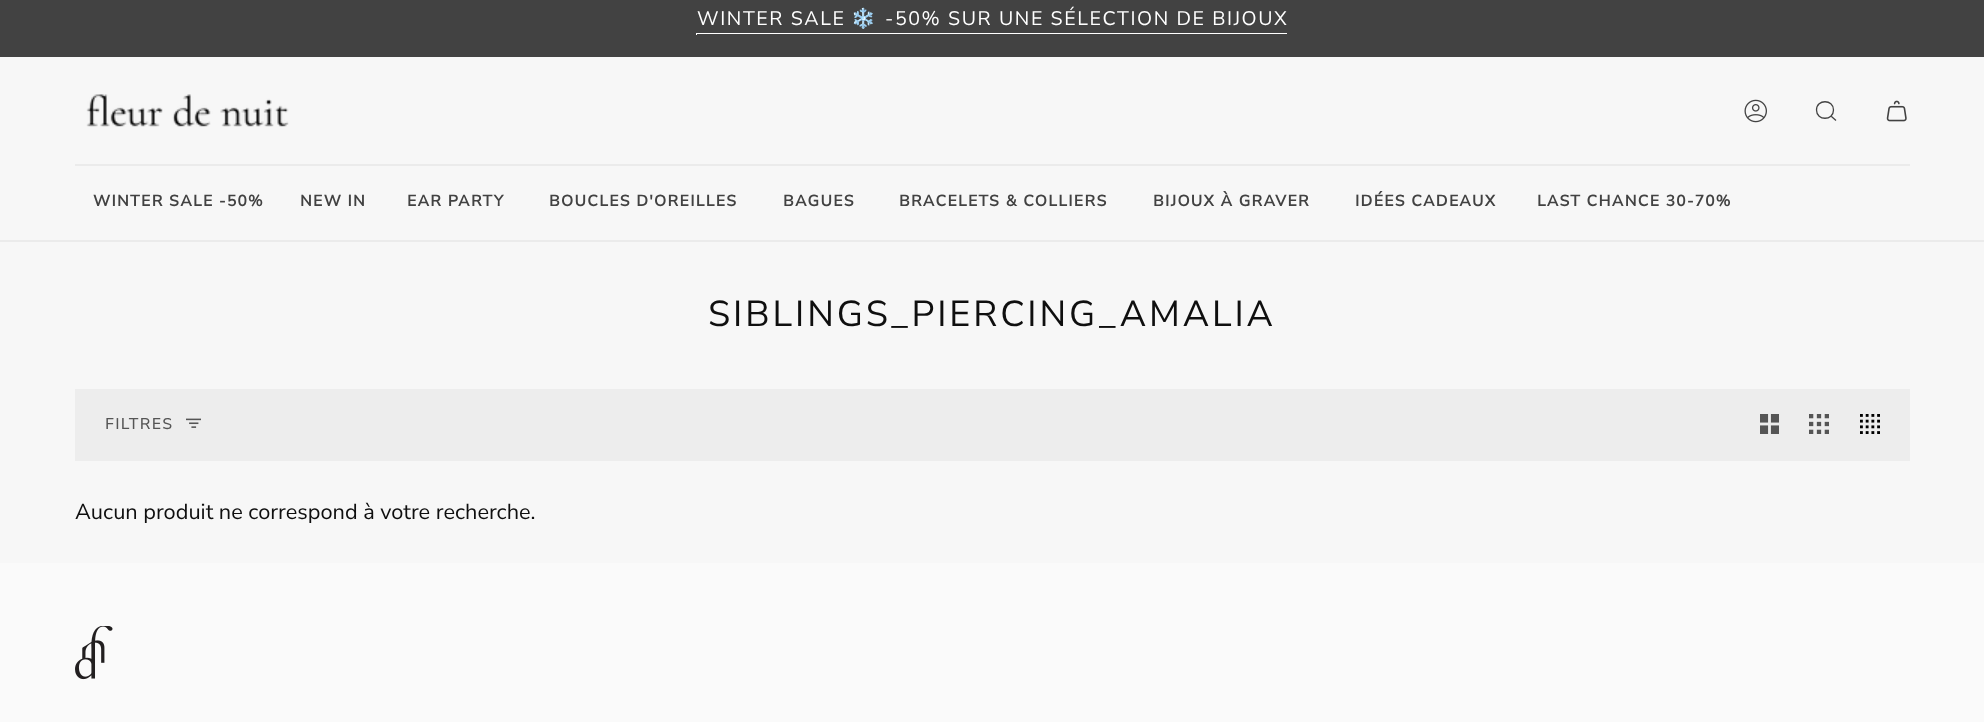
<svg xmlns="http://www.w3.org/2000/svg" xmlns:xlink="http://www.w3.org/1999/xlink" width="1984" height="722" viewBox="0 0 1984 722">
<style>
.cls-1{font:19.6px Nunito Sans;letter-spacing:1.6px;fill:#ffffff}
.cls-2{font:19.6px Noto Color Emoji;letter-spacing:1.6px;fill:#ffffff}
.cls-3{font:bold 15.5px Nunito Sans;letter-spacing:1.25px;fill:#424242}
.cls-4{font:36.1px Nunito Sans;letter-spacing:2.9px;fill:#0f0f0f}
.cls-5{font:500 15.5px Nunito Sans;letter-spacing:1.25px;fill:#555555}
.cls-6{font:21.75px Nunito Sans;fill:#0f0f0f}
</style>
<rect width="100%" height="100%" fill="#f7f7f7"/>
<rect fill="#424242" x="0" y="0" width="1984" height="57"/>
<path fill="#ffffff" d="M696 33V35H697V34H1287V33Z"/>
<rect fill="#ebebeb" x="0" y="240" width="1984" height="2"/>
<rect fill="#ebebeb" x="75" y="164" width="1835" height="2"/>
<image xlink:href="image0.png" x="86" y="94" width="203" height="33"/>
<image xlink:href="image1.png" x="1744" y="99" width="23" height="24"/>
<path fill="none" stroke="#424242" stroke-width="1.3" d="M1831.5 116.5L1836 120.5M1816.5 110C1816.5 121 1833.5 121 1833.5 110C1833.5 99 1816.5 99 1816.5 110Z"/>
<image xlink:href="image2.png" x="1886" y="100" width="21" height="22"/>
<rect fill="#ededed" x="75" y="389" width="1835" height="72"/>
<image xlink:href="image3.png" x="186" y="418" width="15" height="10"/>
<image xlink:href="image4.png" x="1760" y="414" width="19" height="20"/>
<image xlink:href="image5.png" x="1809" y="414" width="20" height="20"/>
<image xlink:href="image6.png" x="1860" y="414" width="20" height="20"/>
<rect fill="#fafafa" x="0" y="563" width="1984" height="159"/>
<image xlink:href="image7.png" x="75" y="626" width="38" height="54"/>
<text class="cls-1" x="697" y="25">WINTER SALE</text>
<text class="cls-2" x="851" y="25">❄️</text>
<text class="cls-1" x="885" y="25">-50% SUR UNE SÉLECTION DE BIJOUX</text>
<text class="cls-3" x="93" y="206">WINTER SALE -50%</text>
<text class="cls-3" x="300" y="206">NEW IN</text>
<text class="cls-3" x="407" y="206">EAR PARTY</text>
<text class="cls-3" x="549" y="206">BOUCLES D'OREILLES</text>
<text class="cls-3" x="783" y="206">BAGUES</text>
<text class="cls-3" x="899" y="206">BRACELETS &amp; COLLIERS</text>
<text class="cls-3" x="1153" y="206">BIJOUX À GRAVER</text>
<text class="cls-3" x="1355" y="206">IDÉES CADEAUX</text>
<text class="cls-3" x="1537" y="206">LAST CHANCE 30-70%</text>
<text class="cls-4" x="708" y="326">SIBLINGS_PIERCING_AMALIA</text>
<text class="cls-5" x="105" y="429">FILTRES</text>
<text class="cls-6" x="75" y="519">Aucun produit ne correspond à votre recherche.</text>
</svg>
